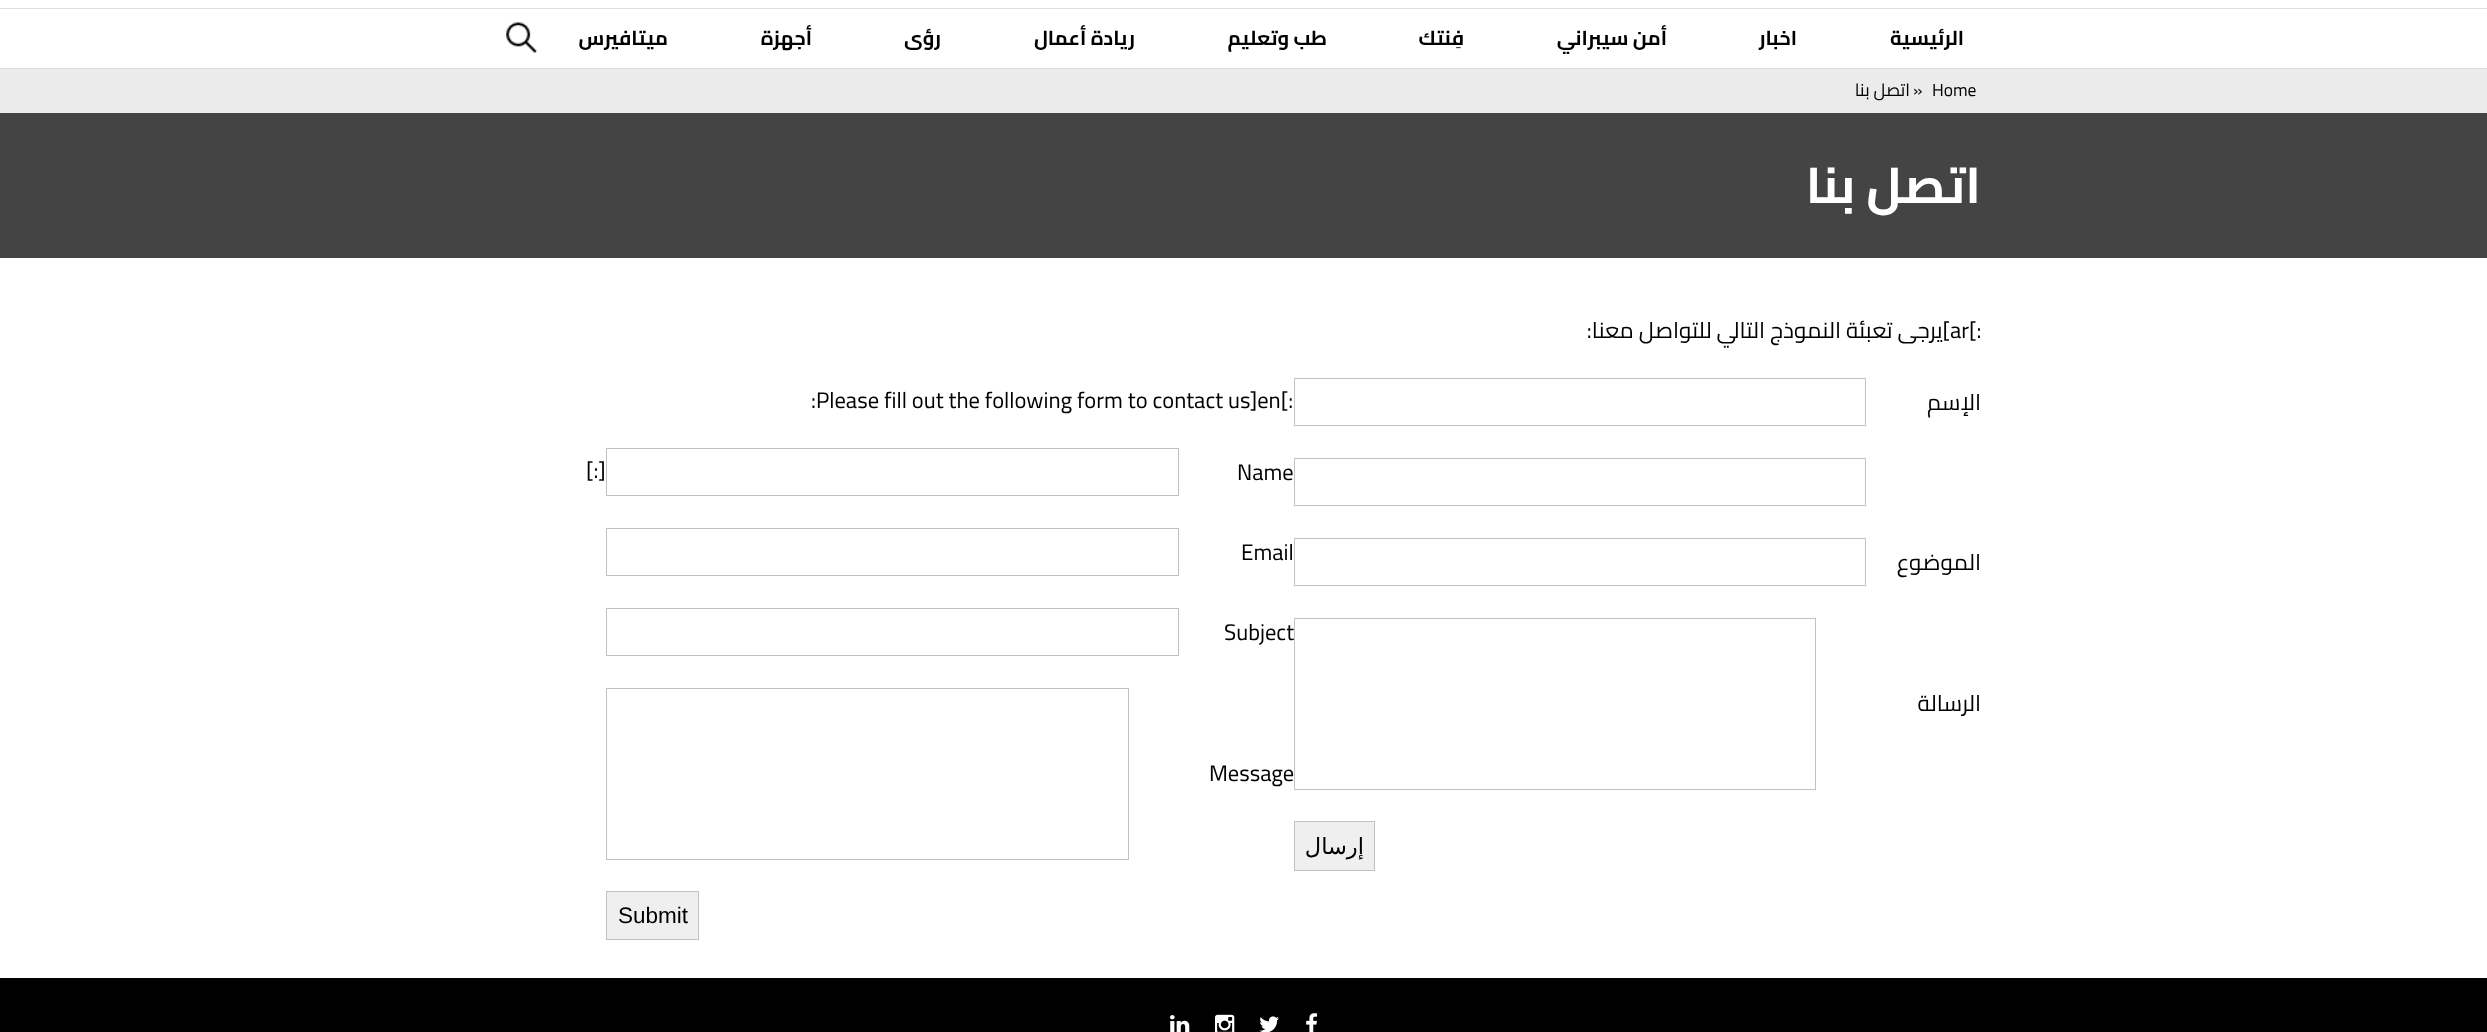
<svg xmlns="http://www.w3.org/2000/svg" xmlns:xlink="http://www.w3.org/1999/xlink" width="2487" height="1032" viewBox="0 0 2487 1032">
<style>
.cls-1{font:bold 20px Cairo;direction:rtl;fill:#000000}
.cls-2{font:17.5px Cairo;fill:#000000}
.cls-3{font:17.5px Cairo;direction:rtl;fill:#000000}
.cls-4{font:bold 50px Cairo;direction:rtl;fill:#ffffff}
.cls-5{font:22.5px Cairo;fill:#000000}
.cls-6{font:22.5px Cairo;direction:rtl;fill:#000000}
.cls-7{font:22.5px DejaVu Sans;direction:rtl;fill:#000000}
.cls-8{font:22.5px Liberation Sans;fill:#000000}
</style>
<rect width="100%" height="100%" fill="#ffffff"/>
<rect fill="#dddddd" x="0" y="8" width="2487" height="1"/>
<rect fill="#dddddd" x="0" y="68" width="2487" height="1"/>
<image xlink:href="image0.png" x="506" y="22" width="31" height="31"/>
<rect fill="#ebebeb" x="0" y="69" width="2487" height="44"/>
<rect fill="#444444" x="0" y="113" width="2487" height="145"/>
<rect fill="none" stroke="#c1c1c1" x="1294.5" y="378.5" width="571" height="47"/>
<rect fill="none" stroke="#c1c1c1" x="1294.5" y="458.5" width="571" height="47"/>
<rect fill="none" stroke="#c1c1c1" x="1294.5" y="538.5" width="571" height="47"/>
<rect fill="none" stroke="#c1c1c1" x="1294.5" y="618.5" width="521" height="171"/>
<rect fill="#efefef" stroke="#c1c1c1" x="1294.5" y="821.5" width="80" height="49"/>
<rect fill="none" stroke="#c1c1c1" x="606.5" y="448.5" width="572" height="47"/>
<rect fill="none" stroke="#c1c1c1" x="606.5" y="528.5" width="572" height="47"/>
<rect fill="none" stroke="#c1c1c1" x="606.5" y="608.5" width="572" height="47"/>
<rect fill="none" stroke="#c1c1c1" x="606.5" y="688.5" width="522" height="171"/>
<rect fill="#efefef" stroke="#c1c1c1" x="606.5" y="891.5" width="92" height="48"/>
<rect fill="#000000" x="0" y="978" width="2487" height="54"/>
<image xlink:href="image1.png" x="1306" y="1013" width="12" height="19"/>
<image xlink:href="image2.png" x="1259" y="1016" width="20" height="16"/>
<image xlink:href="image3.png" x="1215" y="1014" width="20" height="18"/>
<image xlink:href="image4.png" x="1170" y="1015" width="20" height="17"/>
<text class="cls-1" x="1964" y="45">الرئيسية</text>
<text class="cls-1" x="1797" y="45">اخبار</text>
<text class="cls-1" x="1667" y="45">أمن سيبراني</text>
<text class="cls-1" x="1464" y="45">فِنتك</text>
<text class="cls-1" x="1327" y="45">طب وتعليم</text>
<text class="cls-1" x="1135" y="45">ريادة أعمال</text>
<text class="cls-1" x="941" y="45">رؤى</text>
<text class="cls-1" x="812" y="45">أجهزة</text>
<text class="cls-1" x="668" y="45">ميتافيرس</text>
<text class="cls-2" x="1932" y="96">Home</text>
<text class="cls-2" x="1913" y="96">»</text>
<text class="cls-3" x="1910" y="96">اتصل بنا</text>
<text class="cls-4" x="1981" y="203">اتصل بنا</text>
<text class="cls-5" x="1950" y="338">ar[:</text>
<text class="cls-6" x="1950" y="338">]يرجى تعبئة النموذج التالي للتواصل معنا:</text>
<text class="cls-6" x="1981" y="410">الإسم</text>
<text class="cls-6" x="1981" y="570">الموضوع</text>
<text class="cls-6" x="1981" y="711">الرسالة</text>
<text class="cls-7" x="1364" y="854">إرسال</text>
<text class="cls-5" x="811" y="408">:Please fill out the following form to contact us]en[:</text>
<text class="cls-5" x="586" y="478">[:]</text>
<text class="cls-5" x="1237" y="480">Name</text>
<text class="cls-5" x="1241" y="560">Email</text>
<text class="cls-5" x="1224" y="640">Subject</text>
<text class="cls-5" x="1209" y="781">Message</text>
<text class="cls-8" x="618" y="923">Submit</text>
</svg>
